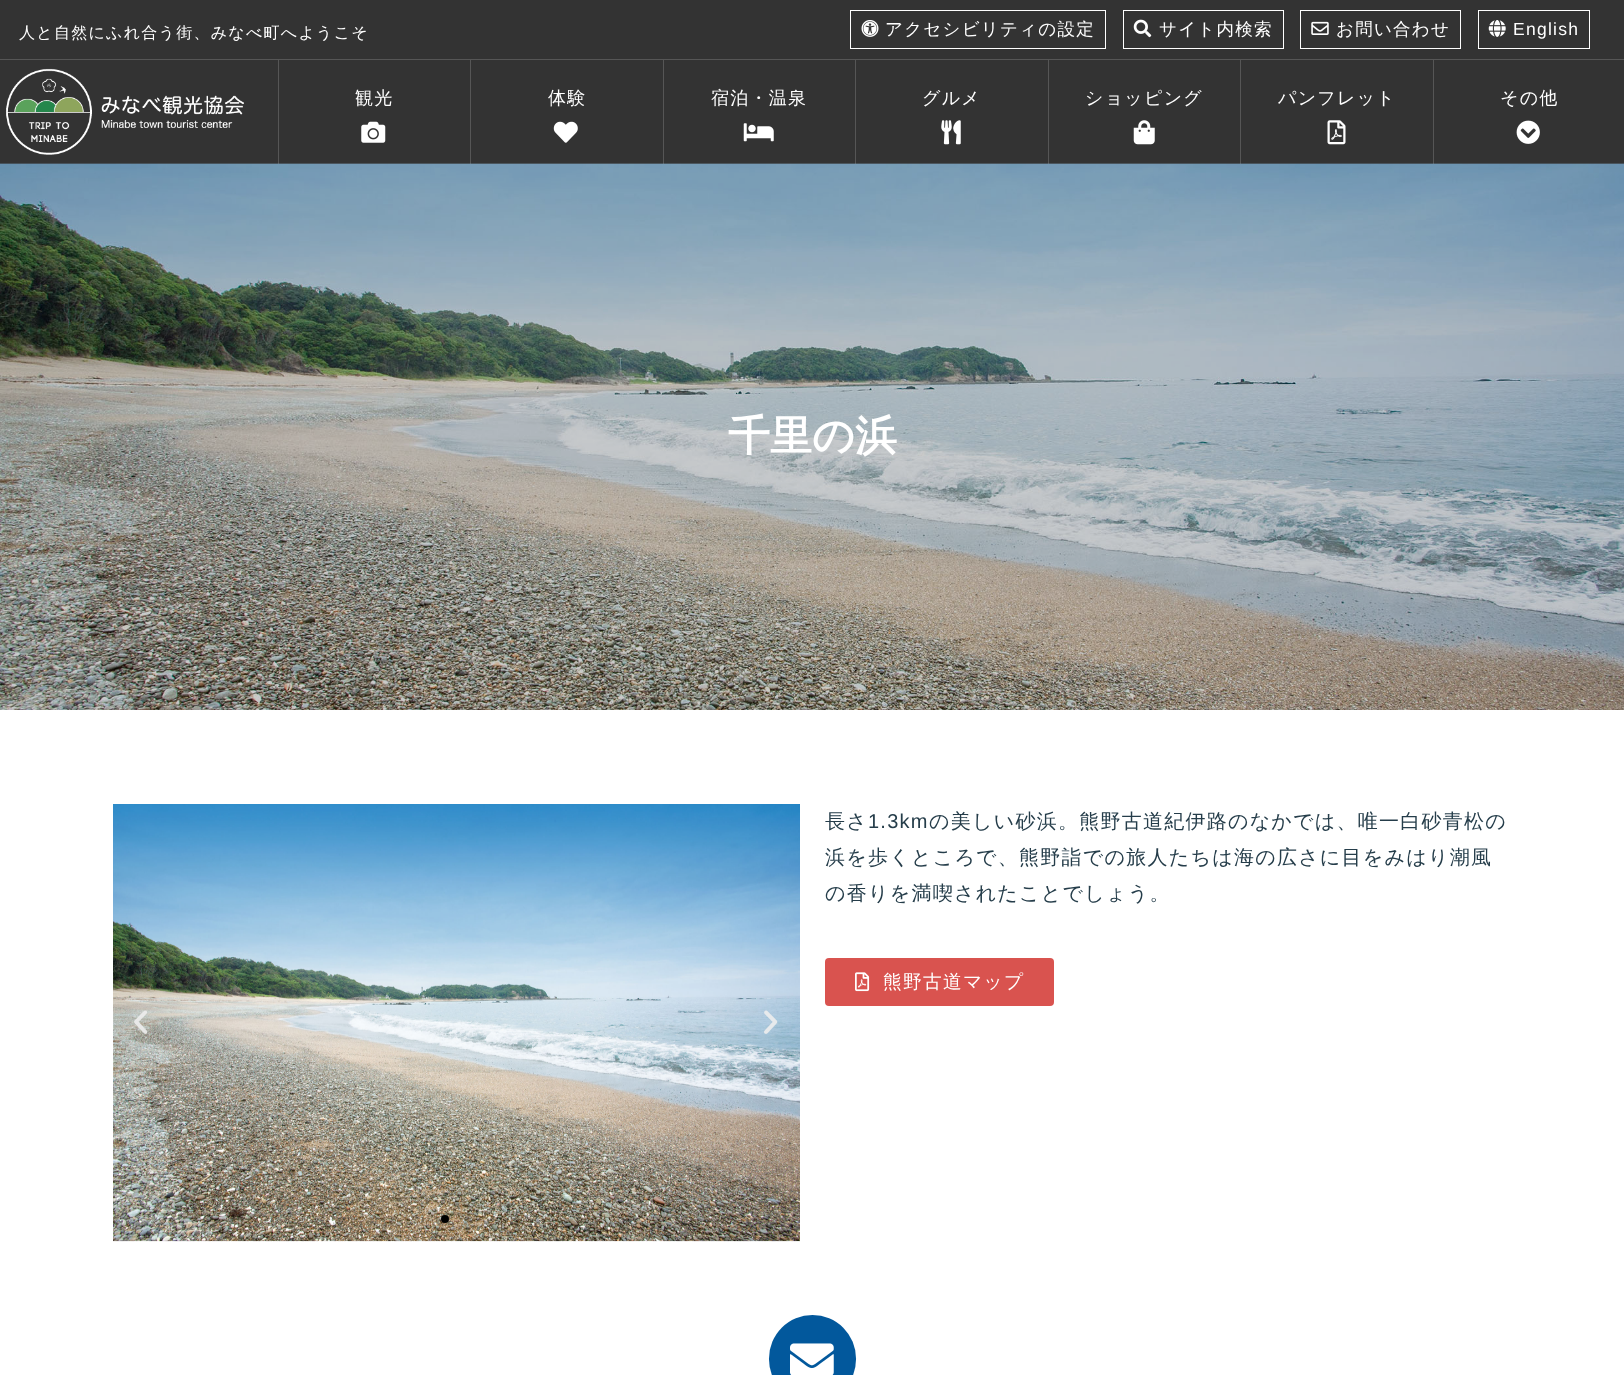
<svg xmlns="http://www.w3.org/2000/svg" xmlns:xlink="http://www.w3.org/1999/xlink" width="1624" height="1375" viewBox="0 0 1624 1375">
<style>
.cls-1{font:500 16px WenQuanYi Zen Hei;letter-spacing:1.25px;fill:#ffffff}
.cls-2{font:500 17.5px WenQuanYi Zen Hei;letter-spacing:1.25px;fill:#ffffff}
.cls-3{font:17.5px Liberation Sans;letter-spacing:1.25px;fill:#ffffff}
.cls-4{font:500 18px WenQuanYi Zen Hei;letter-spacing:1.25px;fill:#ffffff}
.cls-5{font:bold 42px WenQuanYi Zen Hei;fill:#ffffff}
.cls-6{font:500 20px WenQuanYi Zen Hei;letter-spacing:1.25px;fill:#253d4a}
.cls-7{font:20px Liberation Sans;letter-spacing:1.25px;fill:#253d4a}
.cls-8{font:500 18.75px WenQuanYi Zen Hei;letter-spacing:1.25px;fill:#ffffff}
</style>
<rect width="100%" height="100%" fill="#ffffff"/>
<rect fill="#333333" x="0" y="0" width="1624" height="164"/>
<rect fill="none" stroke="#ffffff" x="850.5" y="10.5" width="255" height="38"/>
<image xlink:href="image0.png" x="861" y="20" width="18" height="17"/>
<rect fill="none" stroke="#ffffff" x="1123.5" y="10.5" width="160" height="38"/>
<image xlink:href="image1.png" x="1133" y="19" width="19" height="19"/>
<rect fill="none" stroke="#ffffff" x="1300.5" y="10.5" width="160" height="38"/>
<image xlink:href="image2.png" x="1311" y="21" width="18" height="14"/>
<rect fill="none" stroke="#ffffff" x="1478.5" y="10.5" width="111" height="38"/>
<image xlink:href="image3.png" x="1488" y="20" width="18" height="17"/>
<rect fill="#565656" x="0" y="59" width="1624" height="1"/>
<image xlink:href="image4.png" x="5" y="68" width="239" height="87"/>
<rect fill="#565656" x="278" y="60" width="1" height="104"/>
<image xlink:href="image5.png" x="361" y="121" width="25" height="22"/>
<rect fill="#565656" x="470" y="60" width="1" height="104"/>
<image xlink:href="image6.png" x="553" y="121" width="25" height="22"/>
<rect fill="#565656" x="663" y="60" width="1" height="104"/>
<image xlink:href="image7.png" x="743" y="123" width="31" height="19"/>
<rect fill="#565656" x="855" y="60" width="1" height="104"/>
<image xlink:href="image8.png" x="941" y="120" width="20" height="25"/>
<rect fill="#565656" x="1048" y="60" width="1" height="104"/>
<image xlink:href="image9.png" x="1133" y="120" width="22" height="25"/>
<rect fill="#565656" x="1240" y="60" width="1" height="104"/>
<image xlink:href="image10.png" x="1327" y="120" width="19" height="25"/>
<rect fill="#565656" x="1433" y="60" width="1" height="104"/>
<image xlink:href="image11.png" x="1516" y="120" width="24" height="24"/>
<image xlink:href="image12.png" x="0" y="163" width="1624" height="547"/>
<image xlink:href="image13.png" x="113" y="804" width="687" height="438"/>
<image xlink:href="image14.png" x="134" y="1010" width="14" height="24"/>
<image xlink:href="image15.png" x="764" y="1010" width="14" height="24"/>
<circle fill="#000000" cx="445" cy="1219" r="4"/>
<rect fill="#000000" fill-opacity="0.2" x="464" y="1215" width="7" height="8" rx="3.5"/>
<rect fill="#d9534f" x="825" y="958" width="229" height="48" rx="4"/>
<image xlink:href="image16.png" x="855" y="972" width="15" height="20"/>
<rect fill="#02589c" x="769" y="1315" width="87" height="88" rx="43.5"/>
<image xlink:href="image17.png" x="790" y="1343" width="44" height="32"/>
<text class="cls-1" x="19" y="38">人と自然にふれ合う街、みなべ町へようこそ</text>
<text class="cls-2" x="885" y="35">アクセシビリティの設定</text>
<text class="cls-2" x="1159" y="35">サイト内検索</text>
<text class="cls-2" x="1336" y="35">お問い合わせ</text>
<text class="cls-3" x="1513" y="35">English</text>
<text class="cls-4" x="355" y="104">観光</text>
<text class="cls-4" x="548" y="104">体験</text>
<text class="cls-4" x="711" y="104">宿泊・温泉</text>
<text class="cls-4" x="922" y="104">グルメ</text>
<text class="cls-4" x="1085" y="104">ショッピング</text>
<text class="cls-4" x="1278" y="104">パンフレット</text>
<text class="cls-4" x="1500" y="104">その他</text>
<text class="cls-5" x="728" y="450">千里の浜</text>
<text class="cls-6" x="825" y="828">長さ</text>
<text class="cls-7" x="868" y="828">1.3km</text>
<text class="cls-6" x="929" y="828">の美しい砂浜。熊野古道紀伊路のなかでは、唯一白砂青松の</text>
<text class="cls-6"><tspan x="825" y="864">浜を歩くところで、熊野詣での旅人たちは海の広さに目をみはり潮風</tspan><tspan x="825" y="900">の香りを満喫されたことでしょう。</tspan></text>
<text class="cls-8" x="883" y="988">熊野古道マップ</text>
</svg>
